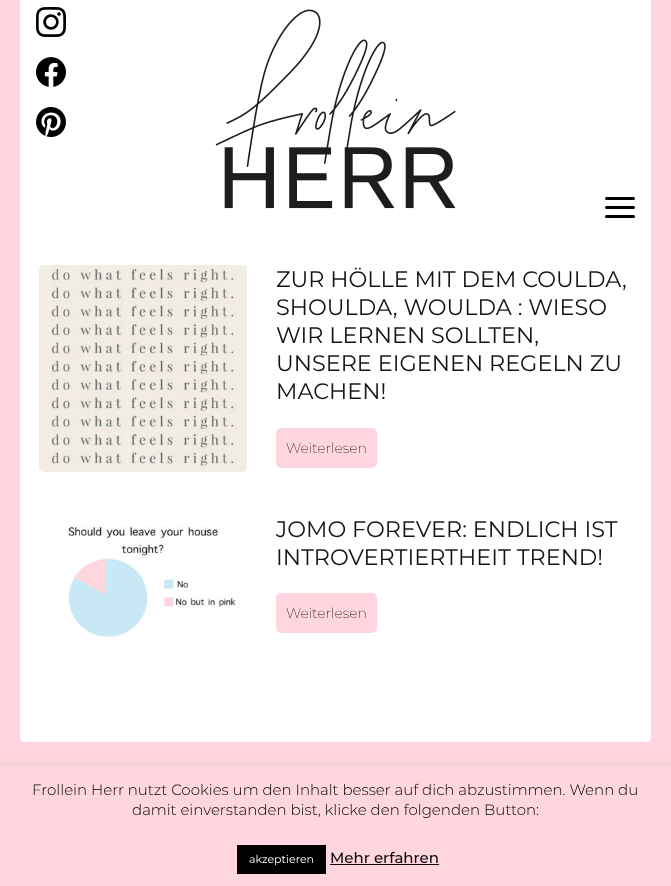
<svg xmlns="http://www.w3.org/2000/svg" xmlns:xlink="http://www.w3.org/1999/xlink" width="671" height="886" viewBox="0 0 671 886">
<style>
.cls-1{font:22.4px Montserrat;fill:#141414}
.cls-2{font:200 14px Montserrat;fill:#141414}
.cls-3{font:300 15px Montserrat;fill:#000000}
.cls-4{font:11px Montserrat;fill:#ffffff}
.cls-5{font:500 15px Montserrat;fill:#0a0a0a}
</style>
<rect width="100%" height="100%" fill="#ffd6df"/>
<rect fill="#ffffff" x="20" y="0" width="631" height="230"/>
<image xlink:href="image0.png" x="36" y="7" width="30" height="30"/>
<image xlink:href="image1.png" x="36" y="57" width="30" height="30"/>
<image xlink:href="image2.png" x="36" y="107" width="30" height="30"/>
<image xlink:href="image3.png" x="215" y="9" width="241" height="200"/>
<rect fill="#000000" x="605" y="197" width="30" height="3" rx="1.5"/>
<rect fill="#000000" x="605" y="206" width="30" height="3" rx="1.5"/>
<rect fill="#000000" x="605" y="215" width="30" height="3" rx="1.5"/>
<path fill="#ffffff" d="M20 230H651V737C651 740 649 742 646 742H25C22 742 20 740 20 737Z"/>
<image xlink:href="image4.png" x="39" y="265" width="208" height="207"/>
<rect fill="#ffd6df" x="276" y="428" width="101" height="40" rx="5"/>
<image xlink:href="image5.png" x="67" y="526" width="170" height="111"/>
<rect fill="#ffd6df" x="276" y="593" width="101" height="40" rx="5"/>
<rect fill="#acabab" fill-opacity="0.3" filter="blur(5px)" x="0" y="765" width="671" height="120"/>
<rect fill="#ffd6df" x="0" y="766" width="671" height="120"/>
<rect fill="#000000" x="237" y="845" width="89" height="29"/>
<rect fill="#0a0a0a" x="330" y="864" width="109" height="1"/>
<text class="cls-1"><tspan x="276" y="287">ZUR HÖLLE MIT DEM COULDA,</tspan><tspan x="276" y="315">SHOULDA, WOULDA : WIESO</tspan><tspan x="276" y="343">WIR LERNEN SOLLTEN,</tspan><tspan x="276" y="371">UNSERE EIGENEN REGELN ZU</tspan><tspan x="276" y="399">MACHEN!</tspan></text>
<text class="cls-2" x="286" y="453">Weiterlesen</text>
<text class="cls-1"><tspan x="276" y="537">JOMO FOREVER: ENDLICH IST</tspan><tspan x="276" y="565">INTROVERTIERTHEIT TREND!</tspan></text>
<text class="cls-2" x="286" y="618">Weiterlesen</text>
<text class="cls-3" x="32" y="795">Frollein Herr nutzt Cookies um den Inhalt besser auf dich abzustimmen. Wenn du</text>
<text class="cls-3" x="132" y="815">damit einverstanden bist, klicke den folgenden Button:</text>
<text class="cls-4" x="249" y="863">akzeptieren</text>
<text class="cls-5" x="330" y="863">Mehr erfahren</text>
</svg>
